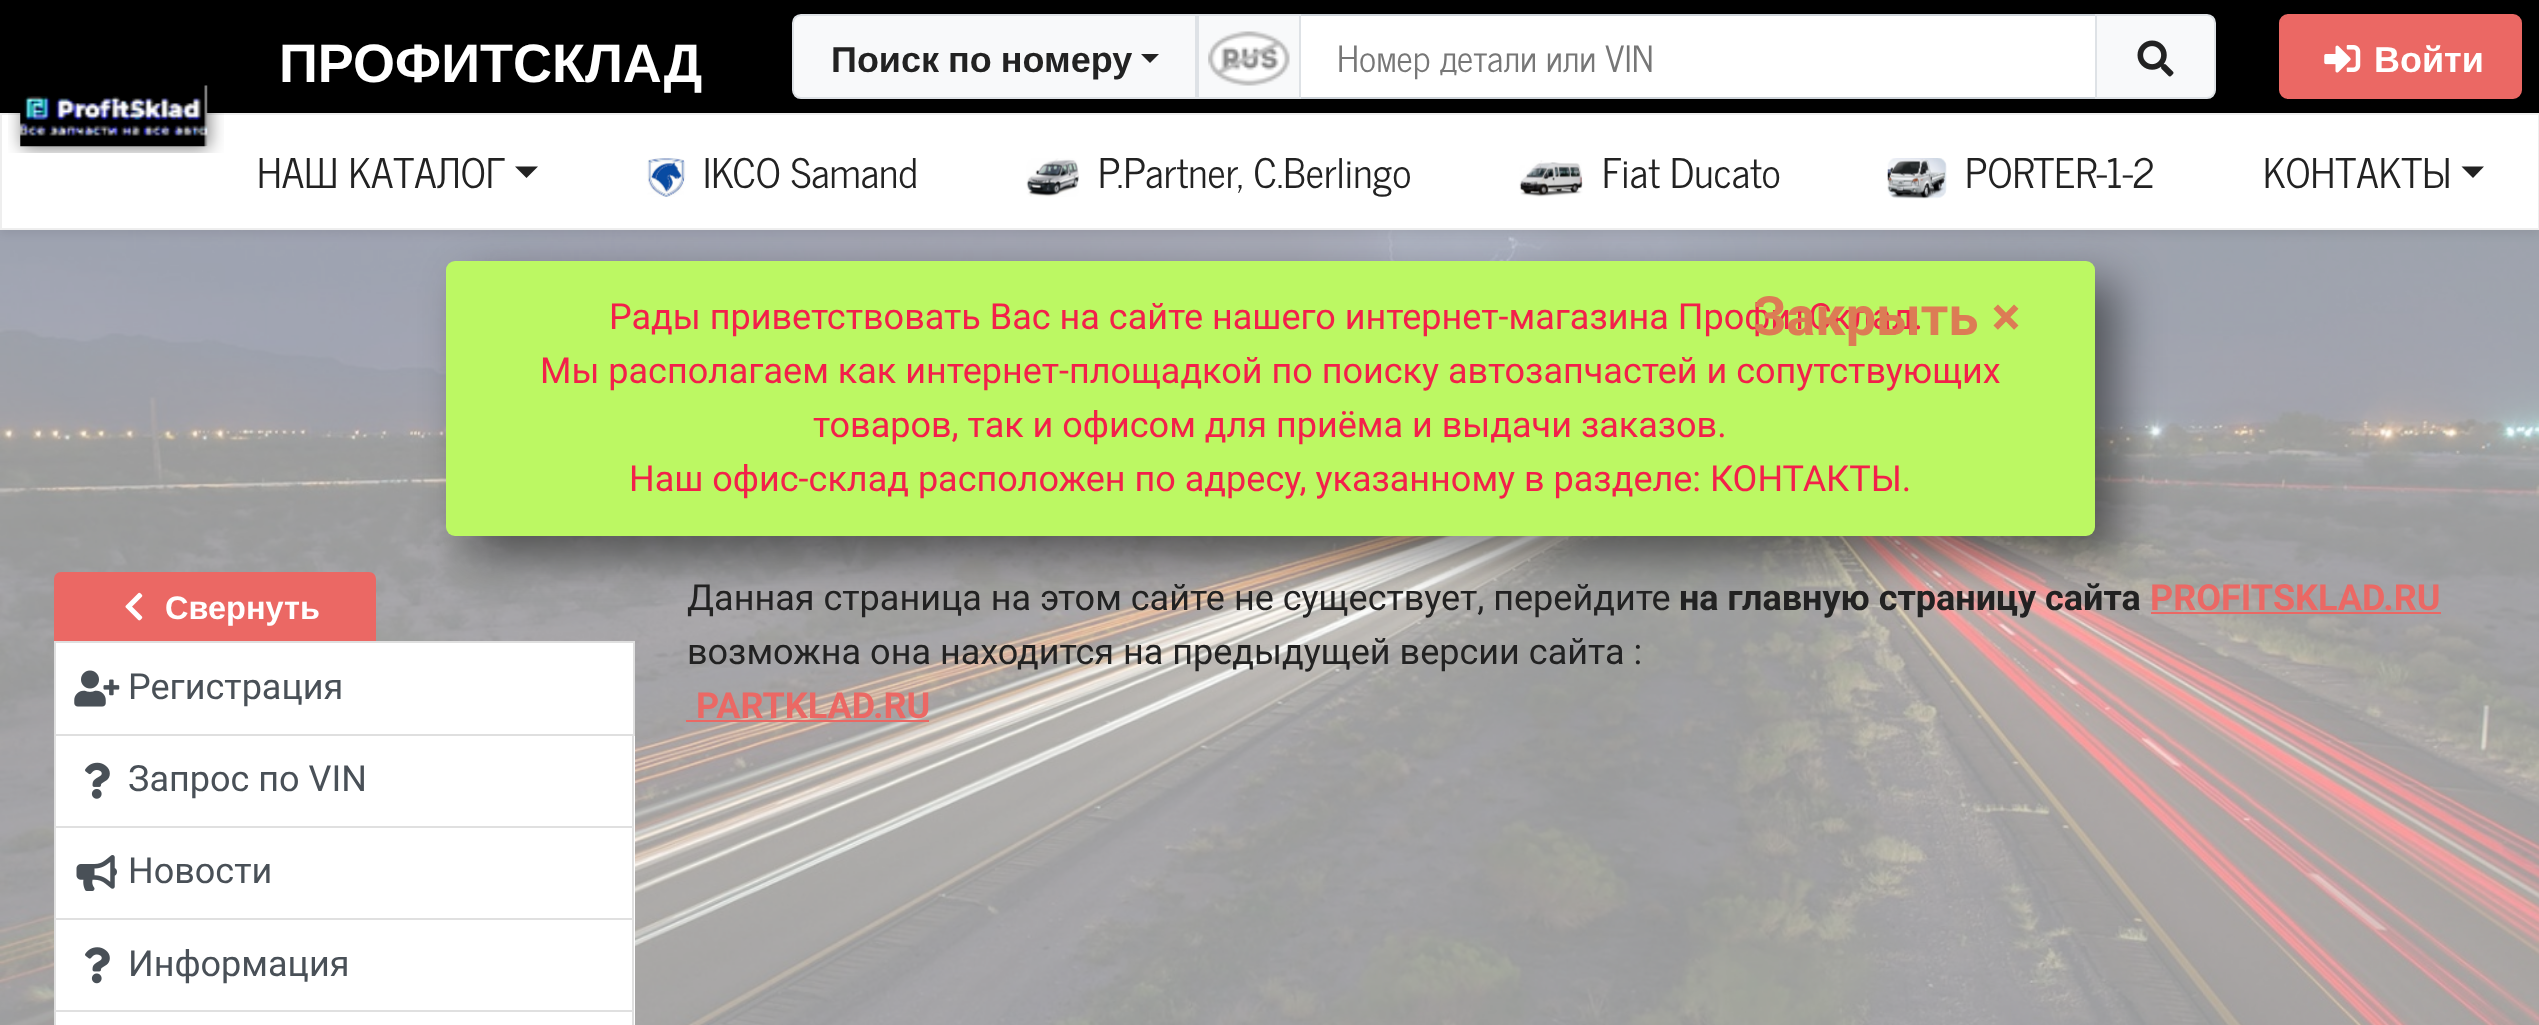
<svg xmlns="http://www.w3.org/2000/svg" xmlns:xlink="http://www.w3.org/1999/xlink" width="2539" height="1025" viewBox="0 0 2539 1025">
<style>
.cls-1{font:bold 54px Liberation Sans;fill:#ffffff}
.cls-2{font:bold 36px Liberation Sans;fill:#222222}
.cls-3{font:36px News Cycle;fill:#777777}
.cls-4{font:bold 36px Liberation Sans;fill:#ffffff}
.cls-5{font:40.5px News Cycle;fill:#222222}
.cls-6{font:36px Roboto;fill:#f3204a}
.cls-7{font:bold 54px Roboto;fill:#dc7c55}
.cls-8{font:bold 32.5px Liberation Sans;fill:#ffffff}
.cls-9{font:36px Roboto;fill:#495057}
.cls-10{font:36px Roboto;fill:#222222}
.cls-11{font:bold 36px Roboto;fill:#222222}
.cls-12{font:bold 36px Roboto;fill:#eb6864}
</style>
<rect width="100%" height="100%" fill="#ffffff"/>
<image xlink:href="image8.png" x="0" y="230" width="2539" height="795"/>
<rect fill="#000000" fill-opacity="0.07" filter="blur(4.5px)" x="0" y="117" width="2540" height="117"/>
<rect fill="#000000" x="0" y="0" width="2539" height="113"/>
<rect fill="#000000" fill-opacity="0.49" filter="blur(22.5px)" x="468" y="281" width="1649" height="275" rx="9"/>
<rect fill="#ffffff" stroke="#eeeeee" stroke-width="2" x="1" y="114" width="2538" height="115"/>
<image xlink:href="image0.png" x="8" y="85" width="216" height="68"/>
<path fill="#f8f9fa" stroke="#dee2e6" stroke-width="2" d="M801 15H1196V98H801C796.5 98 793 94.5 793 90V23C793 18.5 796.5 15 801 15Z"/>
<path fill="#222222" d="M1141 54H1159L1150 63Z"/>
<rect fill="#ffffff" x="1301" y="16" width="794" height="81"/>
<rect fill="none" stroke="#ced4da" stroke-width="2" x="1299" y="15" width="797" height="83"/>
<rect fill="#f8f9fa" stroke="#dee2e6" stroke-width="2" x="1198" y="15" width="102" height="83"/>
<image xlink:href="image1.png" x="1208" y="31" width="82" height="55"/>
<path fill="#f8f9fa" stroke="#dee2e6" stroke-width="2" d="M2096 15H2207C2211.5 15 2215 18.5 2215 23V90C2215 94.5 2211.5 98 2207 98H2096Z"/>
<image xlink:href="image2.png" x="2137" y="40" width="37" height="37"/>
<rect fill="#eb6864" stroke="#eb6864" stroke-width="2" x="2280" y="15" width="241" height="83" rx="8"/>
<image xlink:href="image3.png" x="2324" y="45" width="37" height="28"/>
<path fill="#222222" d="M515 166.5H538L526.5 178Z"/>
<image xlink:href="image4.png" x="647" y="158" width="39" height="39"/>
<image xlink:href="image5.png" x="1026" y="158" width="53" height="39"/>
<image xlink:href="image6.png" x="1519" y="160" width="64" height="37"/>
<image xlink:href="image7.png" x="1887" y="158" width="60" height="41"/>
<path fill="#222222" d="M2461.5 166.5H2484L2473 178Z"/>
<rect fill="#bcf863" x="446" y="261" width="1649" height="275" rx="9"/>
<path fill="#eb6864" stroke="#eb6864" stroke-width="2" d="M61 573H369C372.5 573 375 575.5 375 579V643H55V579C55 575.5 57.5 573 61 573Z"/>
<image xlink:href="image9.png" x="125" y="592" width="18" height="29"/>
<rect fill="#ffffff" stroke="#dfdfdf" stroke-width="2" x="55" y="642" width="579" height="93"/>
<image xlink:href="image10.png" x="74" y="670" width="46" height="37"/>
<rect fill="#ffffff" x="54" y="736" width="581" height="277"/>
<path fill="#dfdfdf" d="M634 736V828L632 826V736Z"/>
<path fill="#000000" fill-opacity="0.12" d="M634 828H54L56 826H632Z"/>
<path fill="#000000" fill-opacity="0.12" d="M54 828V736H56V826Z"/>
<image xlink:href="image11.png" x="85" y="762" width="25" height="37"/>
<path fill="#dfdfdf" d="M634 828V920L632 918V828Z"/>
<path fill="#000000" fill-opacity="0.12" d="M634 920H54L56 918H632Z"/>
<path fill="#000000" fill-opacity="0.12" d="M54 920V828H56V918Z"/>
<image xlink:href="image12.png" x="76" y="855" width="41" height="36"/>
<path fill="#dfdfdf" d="M634 920V1012L632 1010V920Z"/>
<path fill="#000000" fill-opacity="0.12" d="M634 1012H54L56 1010H632Z"/>
<path fill="#000000" fill-opacity="0.12" d="M54 1012V920H56V1010Z"/>
<image xlink:href="image13.png" x="85" y="947" width="25" height="37"/>
<rect fill="#ffffff" x="56" y="1013" width="579" height="12"/>
<path fill="#dfdfdf" d="M634 1012V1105L632 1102V1012Z"/>
<path fill="#dfdfdf" d="M54 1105V1012H56V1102Z"/>
<rect fill="#eb6864" x="2151" y="612" width="290" height="2"/>
<rect fill="#eb6864" x="686" y="720" width="243" height="2"/>
<text class="cls-1" x="279" y="82">ПРОФИТСКЛАД</text>
<text class="cls-2" x="831" y="72" word-spacing="-1">Поиск по номеру</text>
<text class="cls-3" x="1337" y="72">Номер детали или VIN</text>
<text class="cls-4" x="2374" y="72">Войти</text>
<text class="cls-5" x="257" y="188">НАШ КАТАЛОГ</text>
<text class="cls-5" x="703" y="188">IKCO Samand</text>
<text class="cls-5" x="1098" y="188">P.Partner, C.Berlingo</text>
<text class="cls-5" x="1602" y="188">Fiat Ducato</text>
<text class="cls-5" x="1965" y="188">PORTER-1-2</text>
<text class="cls-5" x="2263" y="188">КОНТАКТЫ</text>
<text class="cls-6" x="609" y="329">Рады приветствовать Вас на сайте нашего интернет-магазина ПрофитСклад.</text>
<text class="cls-7" x="1753" y="335">Закрыть ×</text>
<text class="cls-6" x="540" y="383">Мы располагаем как интернет-площадкой по поиску автозапчастей и сопутствующих</text>
<text class="cls-6" x="813" y="437">товаров, так и офисом для приёма и выдачи заказов.</text>
<text class="cls-6" x="629" y="491">Наш офис-склад расположен по адресу, указанному в разделе: КОНТАКТЫ.</text>
<text class="cls-8" x="165" y="619">Свернуть</text>
<text class="cls-9" x="128" y="699">Регистрация</text>
<text class="cls-9" x="128" y="791">Запрос по VIN</text>
<text class="cls-9" x="128" y="883">Новости</text>
<text class="cls-9" x="128" y="976">Информация</text>
<text class="cls-10" x="687" y="610">Данная страница на этом сайте не существует, перейдите</text>
<text class="cls-11" x="1679" y="610">на главную страницу сайта</text>
<text class="cls-12" x="2150" y="610">PROFITSKLAD.RU</text>
<text class="cls-10" x="687" y="664">возможна она находится на предыдущей версии сайта :</text>
<text class="cls-12" x="696" y="718">PARTKLAD.RU</text>
</svg>
